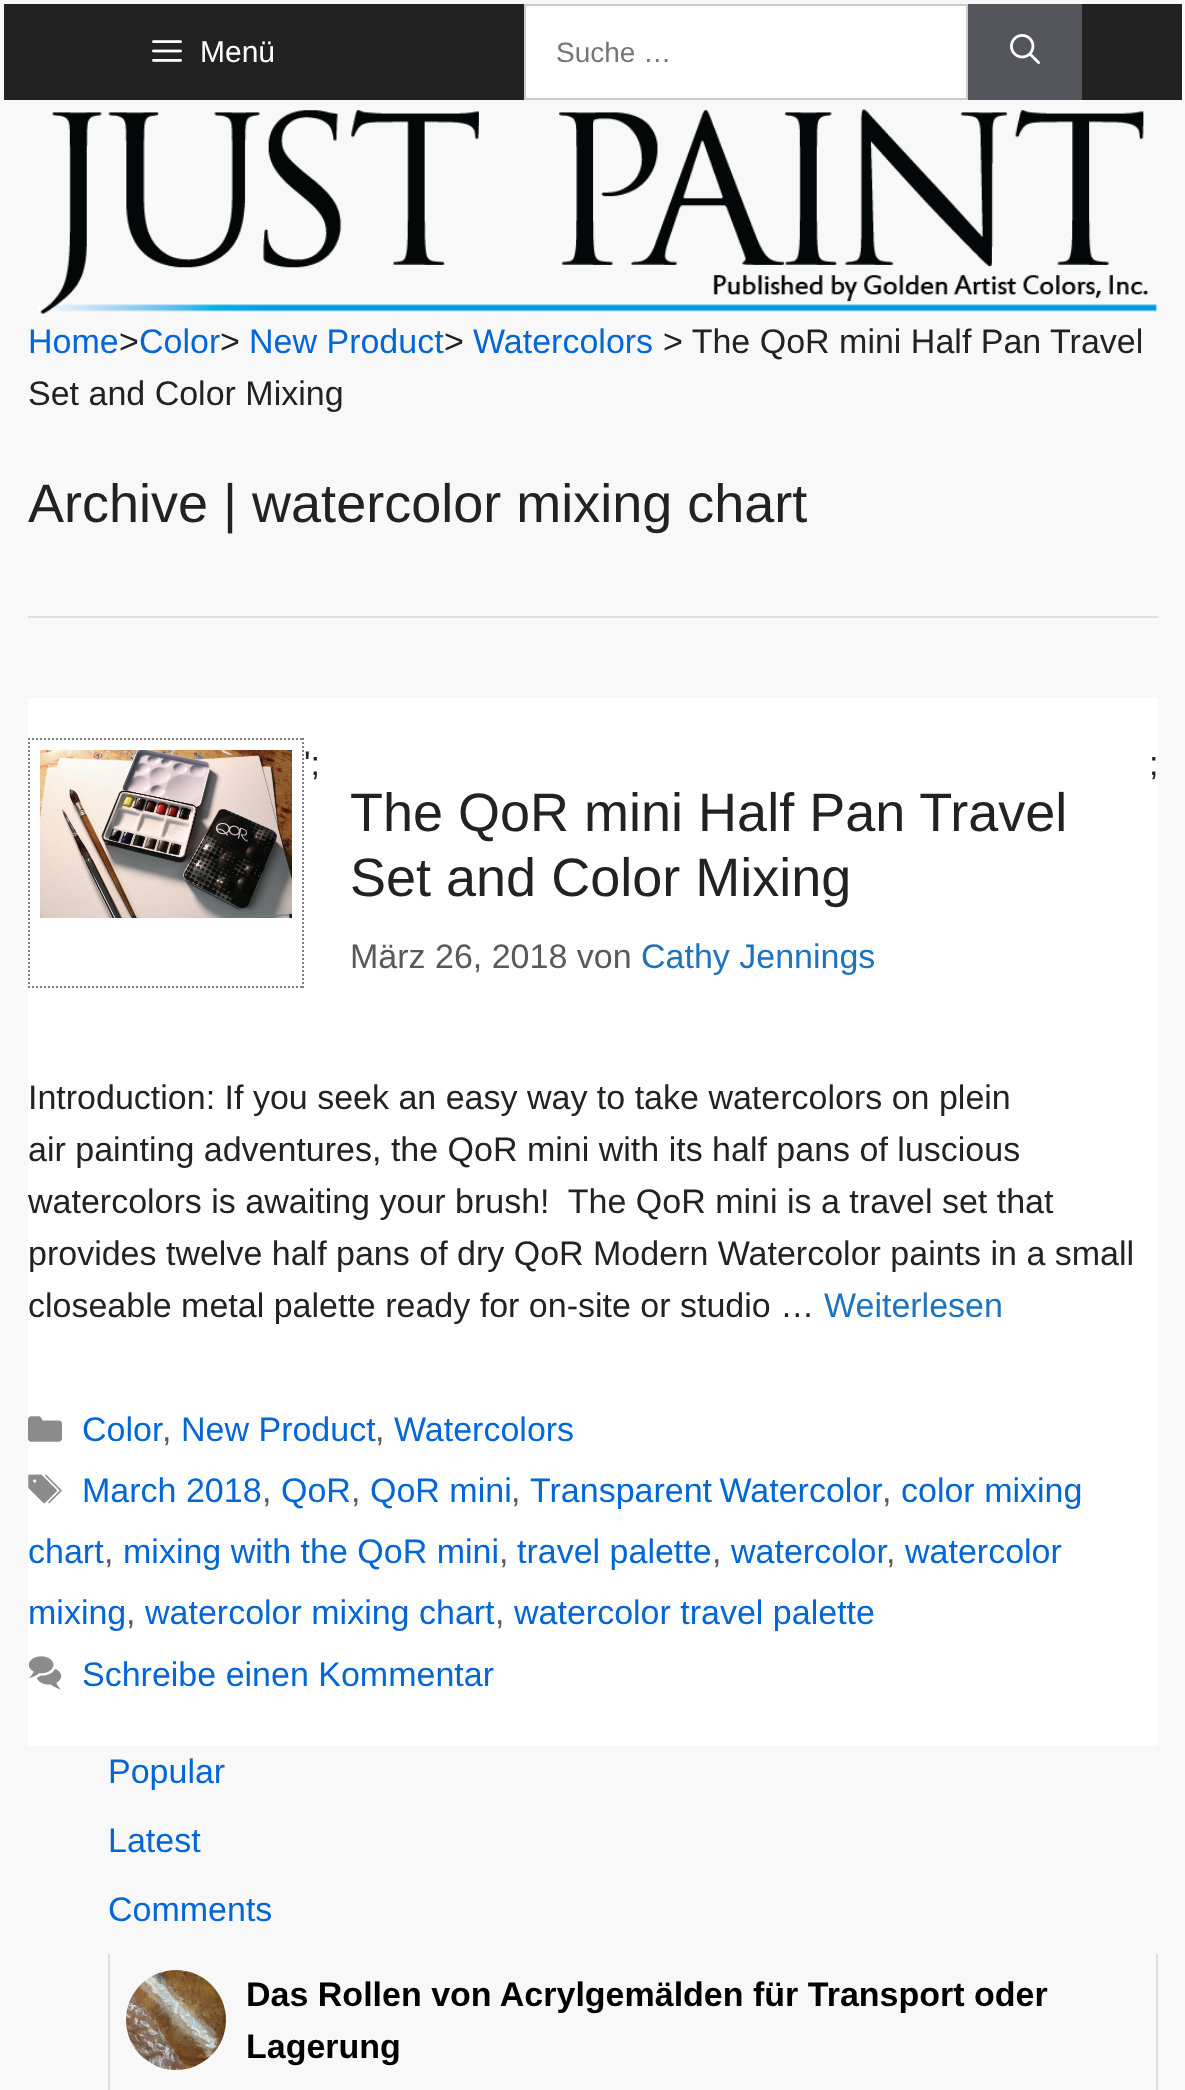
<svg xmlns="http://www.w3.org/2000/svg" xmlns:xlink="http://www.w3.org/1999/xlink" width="1185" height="2090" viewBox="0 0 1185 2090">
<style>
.cls-1{font:30px Liberation Sans;fill:#ffffff}
.cls-2{font:28px Liberation Sans;fill:#757575}
.cls-3{font:34px Liberation Sans;fill:#0366d6}
.cls-4{font:34px Liberation Sans;fill:#222222}
.cls-5{font:54px Liberation Sans;fill:#222222}
.cls-6{font:34px Liberation Sans;fill:#595959}
.cls-7{font:34px Liberation Sans;fill:#1e73be}
.cls-8{font:bold 34px Liberation Sans;fill:#000000}
</style>
<rect width="100%" height="100%" fill="#f8f8f8"/>
<rect fill="#222222" x="4" y="4" width="1178" height="96"/>
<image xlink:href="image0.png" x="152" y="40" width="30" height="22"/>
<rect fill="#ffffff" stroke="#cccccc" stroke-width="2" x="525" y="5" width="442" height="94"/>
<rect fill="#55555e" x="968" y="4" width="114" height="96"/>
<image xlink:href="image1.png" x="1010" y="34" width="30" height="30"/>
<image xlink:href="image2.png" x="37" y="109" width="1120" height="205"/>
<rect fill="#dfdfdf" x="28" y="616" width="1130" height="2"/>
<rect fill="#ffffff" x="28" y="698" width="1130" height="1048"/>
<path fill="none" stroke="#808080" stroke-width="2" stroke-dasharray="2 2" d="M28 739H304"/>
<path fill="none" stroke="#808080" stroke-width="2" stroke-dasharray="2 2" d="M303 738V988"/>
<path fill="none" stroke="#808080" stroke-width="2" stroke-dasharray="2 2" d="M28 987H304"/>
<path fill="none" stroke="#808080" stroke-width="2" stroke-dasharray="2 2" d="M29 738V988"/>
<image xlink:href="image3.png" x="40" y="750" width="252" height="168"/>
<image xlink:href="image4.png" x="28" y="1416" width="34" height="26"/>
<image xlink:href="image5.png" x="28" y="1474" width="34" height="30"/>
<image xlink:href="image6.png" x="28" y="1656" width="34" height="34"/>
<rect fill="#dfdfdf" x="1156" y="1954" width="2" height="136"/>
<rect fill="#dfdfdf" x="108" y="1954" width="2" height="136"/>
<image xlink:href="image7.png" x="126" y="1970" width="100" height="100"/>
<text class="cls-1" x="200" y="62">Menü</text>
<text class="cls-2" x="556" y="62">Suche …</text>
<text class="cls-3" x="28" y="353">Home</text>
<text class="cls-4" x="119" y="353">&gt;</text>
<text class="cls-3" x="139" y="353">Color</text>
<text class="cls-4" x="220" y="353">&gt;</text>
<text class="cls-3" x="249" y="353">New Product</text>
<text class="cls-4" x="444" y="353">&gt;</text>
<text class="cls-3" x="473" y="353">Watercolors</text>
<text class="cls-4" x="663" y="353">&gt; The QoR mini Half Pan Travel</text>
<text class="cls-4" x="28" y="405">Set and Color Mixing</text>
<text class="cls-5" x="28" y="522">Archive | watercolor mixing chart</text>
<text class="cls-4" x="304" y="775">';</text>
<text class="cls-4" x="1149" y="775">;</text>
<text class="cls-5"><tspan x="350" y="831">The QoR mini Half Pan Travel</tspan><tspan x="350" y="896">Set and Color Mixing</tspan></text>
<text class="cls-6" x="350" y="968">März 26, 2018 von</text>
<text class="cls-7" x="641" y="968">Cathy Jennings</text>
<text class="cls-4" xml:space="preserve"><tspan x="28" y="1109">Introduction: If you seek an easy way to take watercolors on plein</tspan><tspan x="28" y="1161">air painting adventures, the QoR mini with its half pans of luscious</tspan><tspan x="28" y="1213">watercolors is awaiting your brush!  The QoR mini is a travel set that</tspan><tspan x="28" y="1265">provides twelve half pans of dry QoR Modern Watercolor paints in a small</tspan><tspan x="28" y="1317">closeable metal palette ready for on-site or studio …</tspan></text>
<text class="cls-7" x="824" y="1317">Weiterlesen</text>
<text class="cls-3" x="82" y="1441">Color</text>
<text class="cls-6" x="162" y="1441">,</text>
<text class="cls-3" x="181" y="1441">New Product</text>
<text class="cls-6" x="375" y="1441">,</text>
<text class="cls-3" x="394" y="1441">Watercolors</text>
<text class="cls-3" x="82" y="1502">March 2018</text>
<text class="cls-6" x="262" y="1502">,</text>
<text class="cls-3" x="281" y="1502">QoR</text>
<text class="cls-6" x="351" y="1502">,</text>
<text class="cls-3" x="370" y="1502">QoR mini</text>
<text class="cls-6" x="511" y="1502">,</text>
<text class="cls-3" x="530" y="1502" word-spacing="-2">Transparent Watercolor</text>
<text class="cls-6" x="882" y="1502">,</text>
<text class="cls-3" x="901" y="1502">color mixing</text>
<text class="cls-3" x="28" y="1563">chart</text>
<text class="cls-6" x="104" y="1563">,</text>
<text class="cls-3" x="123" y="1563">mixing with the QoR mini</text>
<text class="cls-6" x="499" y="1563">,</text>
<text class="cls-3" x="517" y="1563">travel palette</text>
<text class="cls-6" x="712" y="1563">,</text>
<text class="cls-3" x="731" y="1563">watercolor</text>
<text class="cls-6" x="886" y="1563">,</text>
<text class="cls-3" x="905" y="1563">watercolor</text>
<text class="cls-3" x="28" y="1624">mixing</text>
<text class="cls-6" x="126" y="1624">,</text>
<text class="cls-3" x="145" y="1624">watercolor mixing chart</text>
<text class="cls-6" x="495" y="1624">,</text>
<text class="cls-3" x="514" y="1624">watercolor travel palette</text>
<text class="cls-3" x="82" y="1686">Schreibe einen Kommentar</text>
<text class="cls-3" x="108" y="1783">Popular</text>
<text class="cls-3" x="108" y="1852">Latest</text>
<text class="cls-3" x="108" y="1921">Comments</text>
<text class="cls-8"><tspan x="246" y="2006">Das Rollen von Acrylgemälden für Transport oder</tspan><tspan x="246" y="2058">Lagerung</tspan></text>
</svg>
